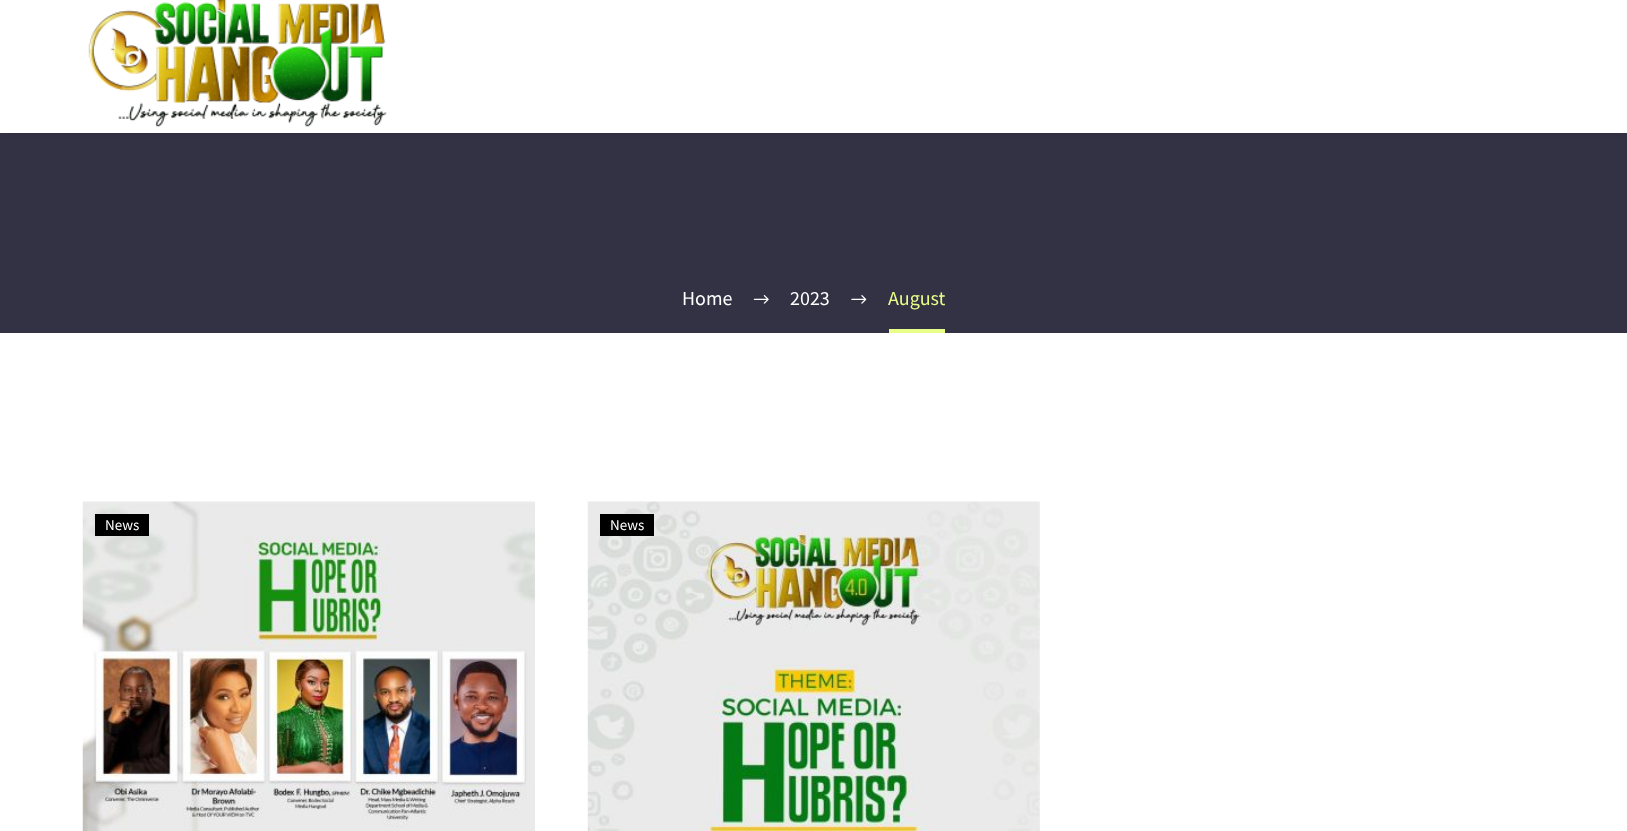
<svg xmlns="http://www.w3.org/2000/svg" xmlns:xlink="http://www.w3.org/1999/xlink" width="1627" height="831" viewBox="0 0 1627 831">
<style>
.cls-1{font:20px Source Sans Pro;fill:#ffffff}
.cls-2{font:20px Source Sans Pro;fill:#e7ff89}
.cls-3{font:15px Source Sans Pro;fill:#ffffff}
</style>
<defs>
<clipPath id="clip1"><path d="M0 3H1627V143H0ZM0 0H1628V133H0Z" clip-rule="evenodd"/></clipPath>
</defs>
<rect width="100%" height="100%" fill="#ffffff"/>
<rect fill="#333144" x="0" y="133" width="1627" height="200"/>
<g clip-path="url(#clip1)">
<rect fill="#000000" fill-opacity="0.15" filter="blur(3px)" x="6" y="13" width="1615" height="120"/>
</g>
<image xlink:href="image0.png" x="88" y="0" width="299" height="127"/>
<image xlink:href="image1.png" x="753" y="295" width="16" height="9"/>
<image xlink:href="image2.png" x="851" y="295" width="16" height="9"/>
<rect fill="#e7ff89" x="889" y="329" width="56" height="4"/>
<image xlink:href="image3.png" x="82" y="501" width="453" height="330"/>
<rect fill="#000000" x="95" y="514" width="54" height="22"/>
<image xlink:href="image4.png" x="587" y="501" width="453" height="330"/>
<rect fill="#000000" x="600" y="514" width="54" height="22"/>
<text class="cls-1" x="682" y="305">Home</text>
<text class="cls-1" x="790" y="305">2023</text>
<text class="cls-2" x="888" y="305">August</text>
<text class="cls-3" x="105" y="530">News</text>
<text class="cls-3" x="610" y="530">News</text>
</svg>
